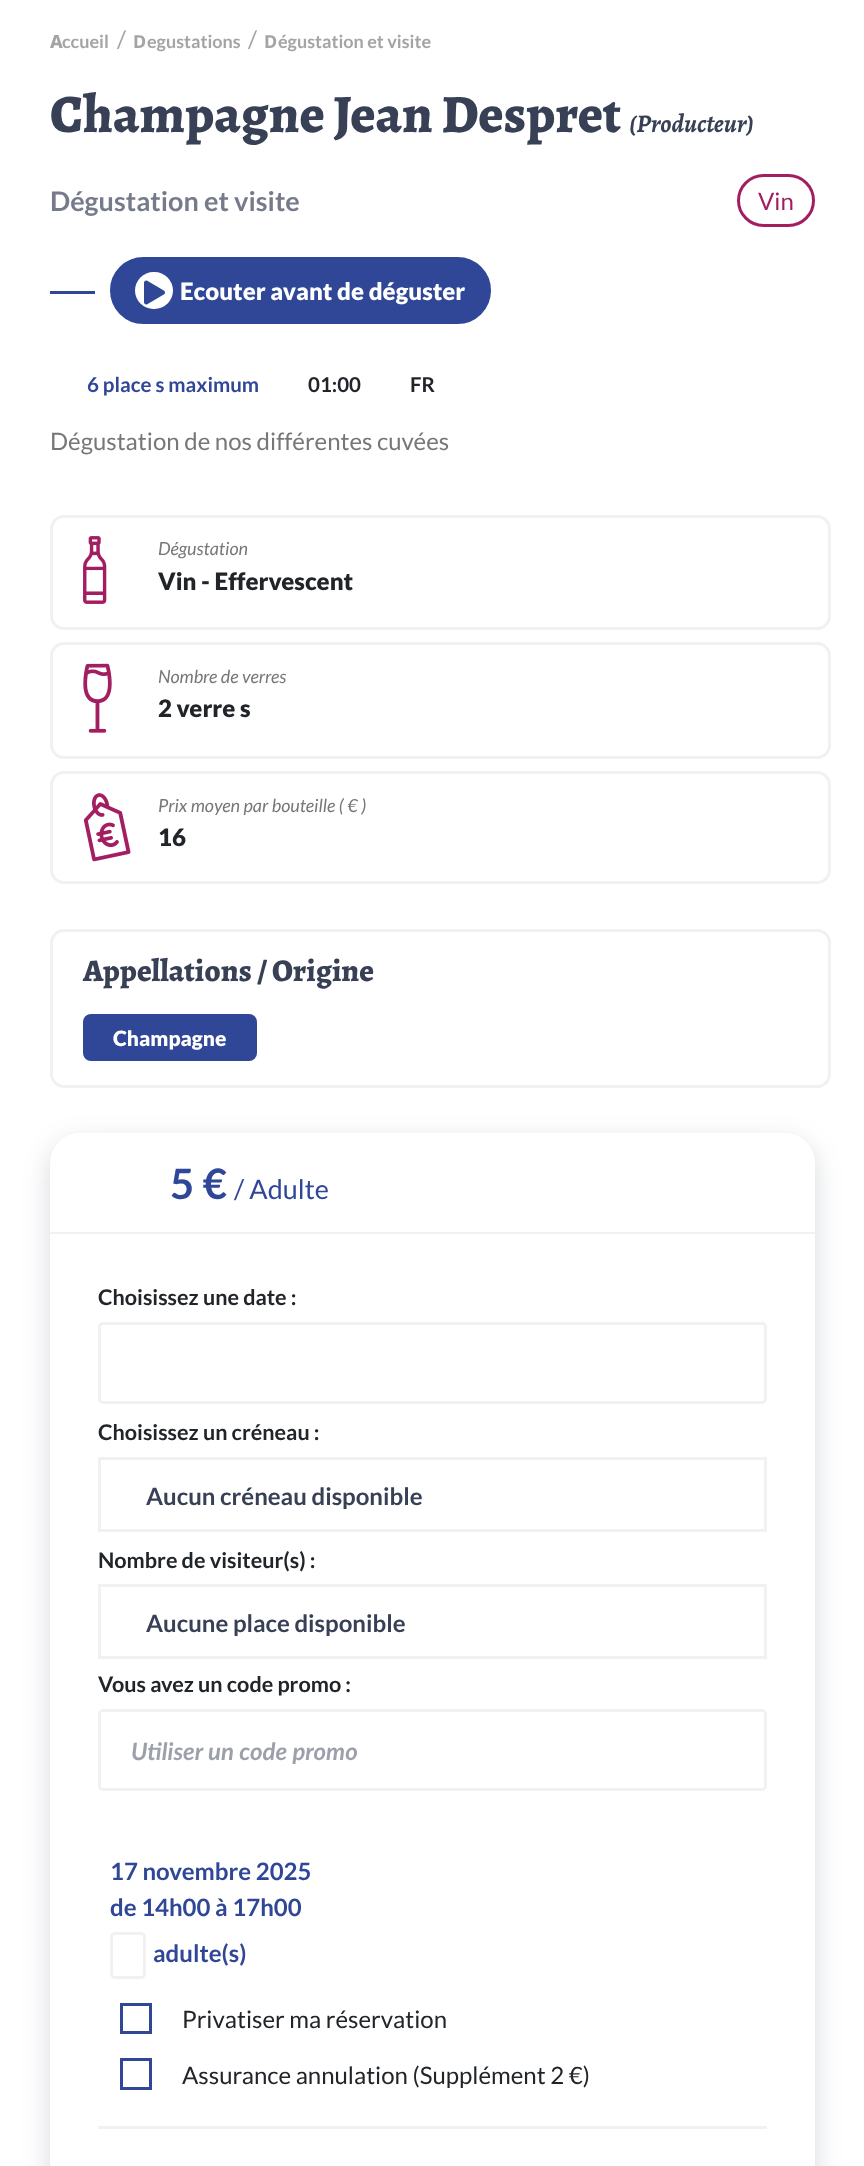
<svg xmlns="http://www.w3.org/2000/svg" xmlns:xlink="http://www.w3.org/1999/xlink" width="864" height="2166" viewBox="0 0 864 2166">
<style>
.cls-1{font:800 18px Noto Sans;fill:#a4a4a4}
.cls-2{font:bold 18px Lato;fill:#a4a4a4}
.cls-3{font:24px Lato;fill:#a4a4a4}
.cls-4{font:bold 18px Noto Sans;fill:#a4a4a4}
.cls-5{font:800 54px Alegreya;fill:#384056}
.cls-6{font:italic bold 25.5px Alegreya;fill:#384056}
.cls-7{font:bold 27px Lato;fill:#767b8a}
.cls-8{font:24px Lato;fill:#a31e61}
.cls-9{font:900 24px Lato;fill:#ffffff}
.cls-10{font:bold 20.5px Lato;fill:#304797}
.cls-11{font:bold 20.5px Lato;fill:#212529}
.cls-12{font:24px Lato;fill:#777777}
.cls-13{font:italic 18px Lato;fill:#777777}
.cls-14{font:900 24px Lato;fill:#212529}
.cls-15{font:800 31.5px Alegreya;fill:#384056}
.cls-16{font:900 21px Lato;fill:#ffffff}
.cls-17{font:bold 42px Lato;fill:#304797}
.cls-18{font:27px Lato;fill:#304797}
.cls-19{font:bold 21.6px Lato;fill:#212529}
.cls-20{font:bold 24px Lato;fill:#384056}
.cls-21{font:italic bold 24px Lato;fill:#9ca0ab}
.cls-22{font:bold 24px Lato;fill:#304797}
.cls-23{font:24px Lato;fill:#212529}
</style>
<rect width="100%" height="100%" fill="#ffffff"/>
<rect fill="none" stroke="#a31e61" stroke-width="3" x="738.5" y="175.5" width="75" height="50" rx="25"/>
<rect fill="#304797" x="50" y="291" width="45" height="3"/>
<rect fill="#2f4796" stroke="#2f4796" stroke-width="3" x="111.5" y="258.5" width="378" height="64" rx="32"/>
<rect fill="#ffffff" x="135" y="272" width="38" height="37" rx="18.5"/>
<image xlink:href="image0.png" x="144" y="280" width="21" height="25"/>
<rect fill="none" stroke="#f2f1ef" stroke-width="3" x="51.5" y="516.5" width="778" height="112" rx="12.5"/>
<image xlink:href="image1.png" x="83" y="536" width="24" height="68"/>
<rect fill="none" stroke="#f2f1ef" stroke-width="3" x="51.5" y="643.5" width="778" height="114" rx="12.5"/>
<image xlink:href="image2.png" x="83" y="663" width="29" height="70"/>
<rect fill="none" stroke="#f2f1ef" stroke-width="3" x="51.5" y="772.5" width="778" height="110" rx="12.5"/>
<image xlink:href="image3.png" x="83" y="793" width="48" height="69"/>
<rect fill="none" stroke="#f2f1ef" stroke-width="3" x="51.5" y="930.5" width="778" height="156" rx="12.5"/>
<rect fill="#304797" x="83" y="1014" width="174" height="47" rx="8"/>
<rect fill="#384056" fill-opacity="0.2" filter="blur(13.5px)" x="50" y="1142" width="765" height="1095" rx="30"/>
<rect fill="#ffffff" x="50" y="1133" width="765" height="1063" rx="30"/>
<rect fill="#f2f1ef" x="50" y="1232" width="765" height="2"/>
<rect fill="none" stroke="#f2f1ef" stroke-width="3" x="99.5" y="1323.5" width="666" height="79" rx="3.5"/>
<rect fill="none" stroke="#f2f1ef" stroke-width="3" x="99.5" y="1458.5" width="666" height="72"/>
<rect fill="none" stroke="#f2f1ef" stroke-width="3" x="99.5" y="1585.5" width="666" height="72"/>
<rect fill="none" stroke="#f2f1ef" stroke-width="3" x="99.5" y="1710.5" width="666" height="79" rx="3.5"/>
<rect fill="none" stroke="#f2f1ef" stroke-width="3" x="111.5" y="1933.5" width="33" height="44" rx="3.5"/>
<rect fill="none" stroke="#304797" stroke-width="3" x="121.5" y="2004.5" width="29" height="28"/>
<rect fill="none" stroke="#304797" stroke-width="3" x="121.5" y="2059.5" width="29" height="29"/>
<rect fill="#f2f1ef" x="98" y="2126" width="669" height="3"/>
<text class="cls-1" x="50" y="48">A</text>
<text class="cls-2" x="62" y="48">ccueil</text>
<text class="cls-3" x="117" y="48">/</text>
<text class="cls-4" x="133" y="48">D</text>
<text class="cls-2" x="147" y="48">egustations</text>
<text class="cls-3" x="248" y="48">/</text>
<text class="cls-4" x="264" y="48">D</text>
<text class="cls-2" x="278" y="48">égustation et visite</text>
<text class="cls-5" x="50" y="132">Champagne Jean Despret</text>
<text class="cls-6" x="629" y="132">(Producteur)</text>
<text class="cls-7" x="50" y="211">Dégustation et visite</text>
<text class="cls-8" x="758" y="210">Vin</text>
<text class="cls-9" x="180" y="300">Ecouter avant de déguster</text>
<text class="cls-10" x="87" y="392">6 place s maximum</text>
<text class="cls-11" x="308" y="392">01:00</text>
<text class="cls-11" x="410" y="392">FR</text>
<text class="cls-12" x="50" y="450">Dégustation de nos différentes cuvées</text>
<text class="cls-13" x="158" y="555">Dégustation</text>
<text class="cls-14" x="158" y="590">Vin - Effervescent</text>
<text class="cls-13" x="158" y="683">Nombre de verres</text>
<text class="cls-14" x="158" y="717">2 verre s</text>
<text class="cls-13" x="158" y="812">Prix moyen par bouteille ( € )</text>
<text class="cls-14" x="158" y="846">16</text>
<text class="cls-15" x="83" y="981">Appellations / Origine</text>
<text class="cls-16" x="113" y="1046">Champagne</text>
<text class="cls-17" x="170" y="1199">5 €</text>
<text class="cls-18" x="234" y="1199">/ Adulte</text>
<text class="cls-19" x="98" y="1305">Choisissez une date :</text>
<text class="cls-19" x="98" y="1440">Choisissez un créneau :</text>
<text class="cls-20" x="146" y="1505">Aucun créneau disponible</text>
<text class="cls-19" x="98" y="1568">Nombre de visiteur(s) :</text>
<text class="cls-20" x="146" y="1632">Aucune place disponible</text>
<text class="cls-19" x="98" y="1692">Vous avez un code promo :</text>
<text class="cls-21" x="131" y="1760">Utiliser un code promo</text>
<text class="cls-22"><tspan x="110" y="1880">17 novembre 2025</tspan><tspan x="110" y="1916">de 14h00 à 17h00</tspan></text>
<text class="cls-22" x="153" y="1962">adulte(s)</text>
<text class="cls-23" x="182" y="2028">Privatiser ma réservation</text>
<text class="cls-23" x="182" y="2084">Assurance annulation (Supplément 2 €)</text>
</svg>
